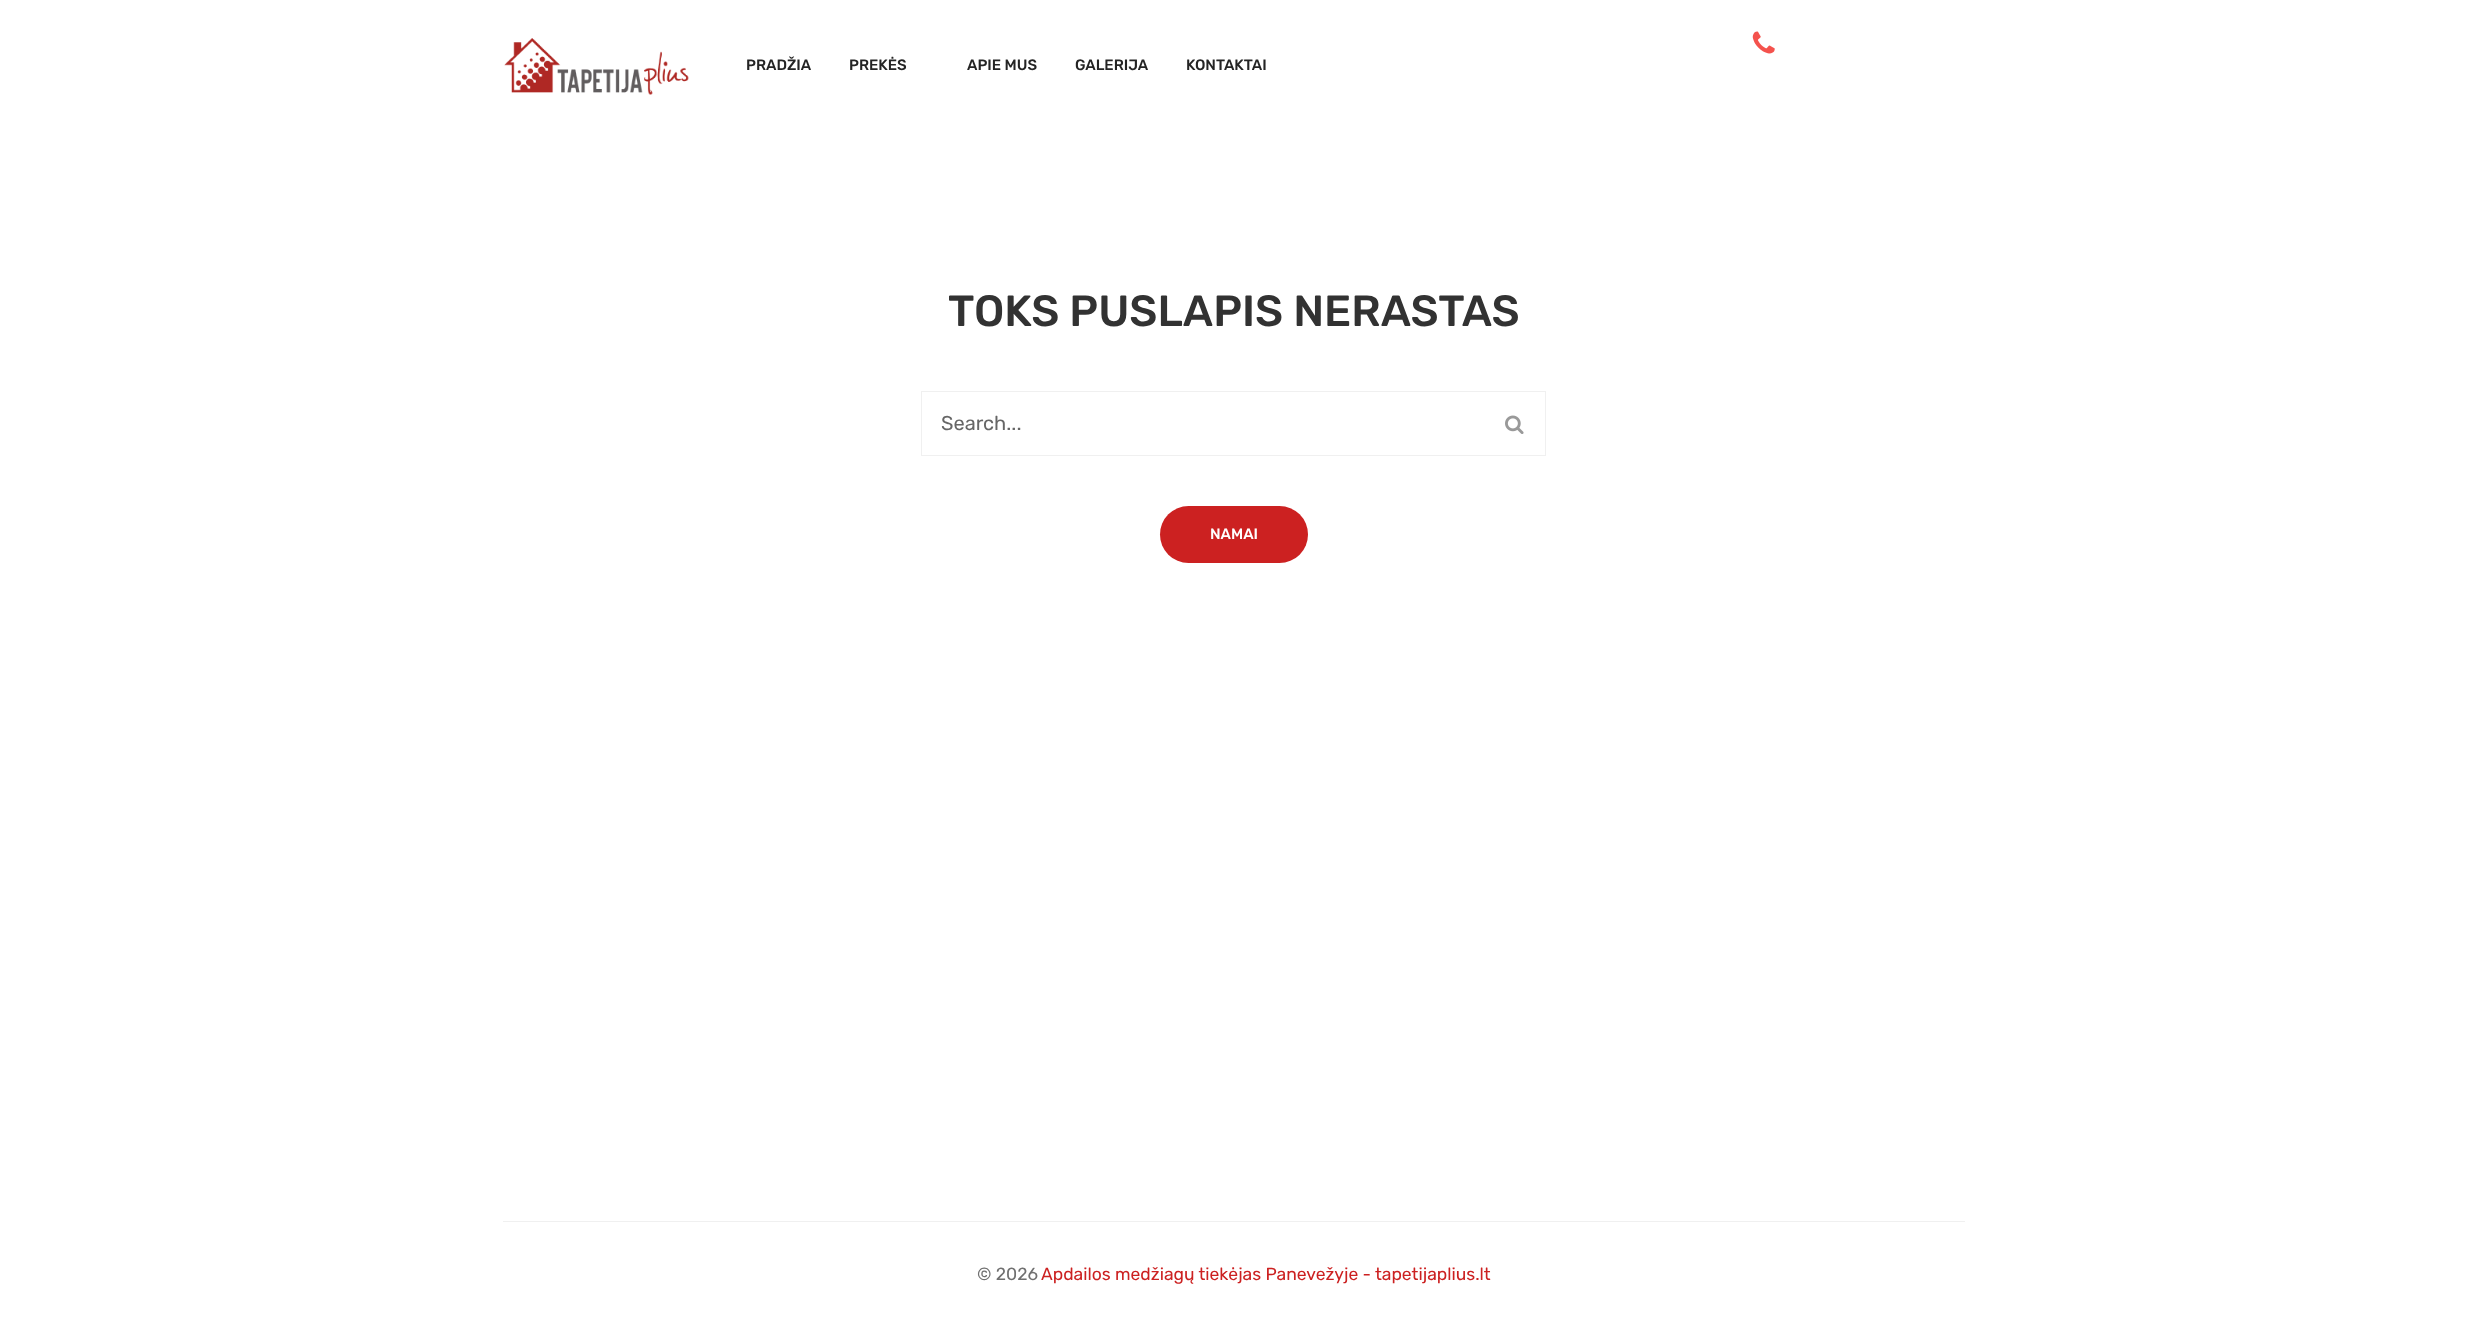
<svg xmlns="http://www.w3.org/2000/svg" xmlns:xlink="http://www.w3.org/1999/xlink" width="2467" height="1327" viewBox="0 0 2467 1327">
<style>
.cls-1{font:500 15px Rubik;fill:#242424}
.cls-2{font:500 43.75px Rubik;fill:#323232}
.cls-3{font:20px Rubik;fill:#666666}
.cls-4{font:500 15px Rubik;fill:#ffffff}
.cls-5{font:17.5px Rubik;fill:#707070}
.cls-6{font:17.5px Rubik;fill:#cc2121}
</style>
<rect width="100%" height="100%" fill="#ffffff"/>
<image xlink:href="image0.png" x="504" y="38" width="185" height="57"/>
<image xlink:href="image1.png" x="1752" y="31" width="23" height="23"/>
<rect fill="none" stroke="#f0f0f0" x="921.5" y="391.5" width="624" height="64"/>
<image xlink:href="image2.png" x="1505" y="415" width="19" height="19"/>
<rect fill="#cc2121" x="1160" y="506" width="148" height="57" rx="28.5"/>
<rect fill="#f0f0f0" x="503" y="1221" width="1462" height="1"/>
<text class="cls-1" x="746" y="70">PRADŽIA</text>
<text class="cls-1" x="849" y="70">PREKĖS</text>
<text class="cls-1" x="967" y="70">APIE MUS</text>
<text class="cls-1" x="1075" y="70">GALERIJA</text>
<text class="cls-1" x="1186" y="70">KONTAKTAI</text>
<text class="cls-2" x="948" y="326">TOKS PUSLAPIS NERASTAS</text>
<text class="cls-3" x="941" y="430">Search...</text>
<text class="cls-4" x="1210" y="539">NAMAI</text>
<text class="cls-5" x="977" y="1280">© 2026</text>
<text class="cls-6" x="1041" y="1280">Apdailos medžiagų tiekėjas Panevežyje - tapetijaplius.lt</text>
</svg>
